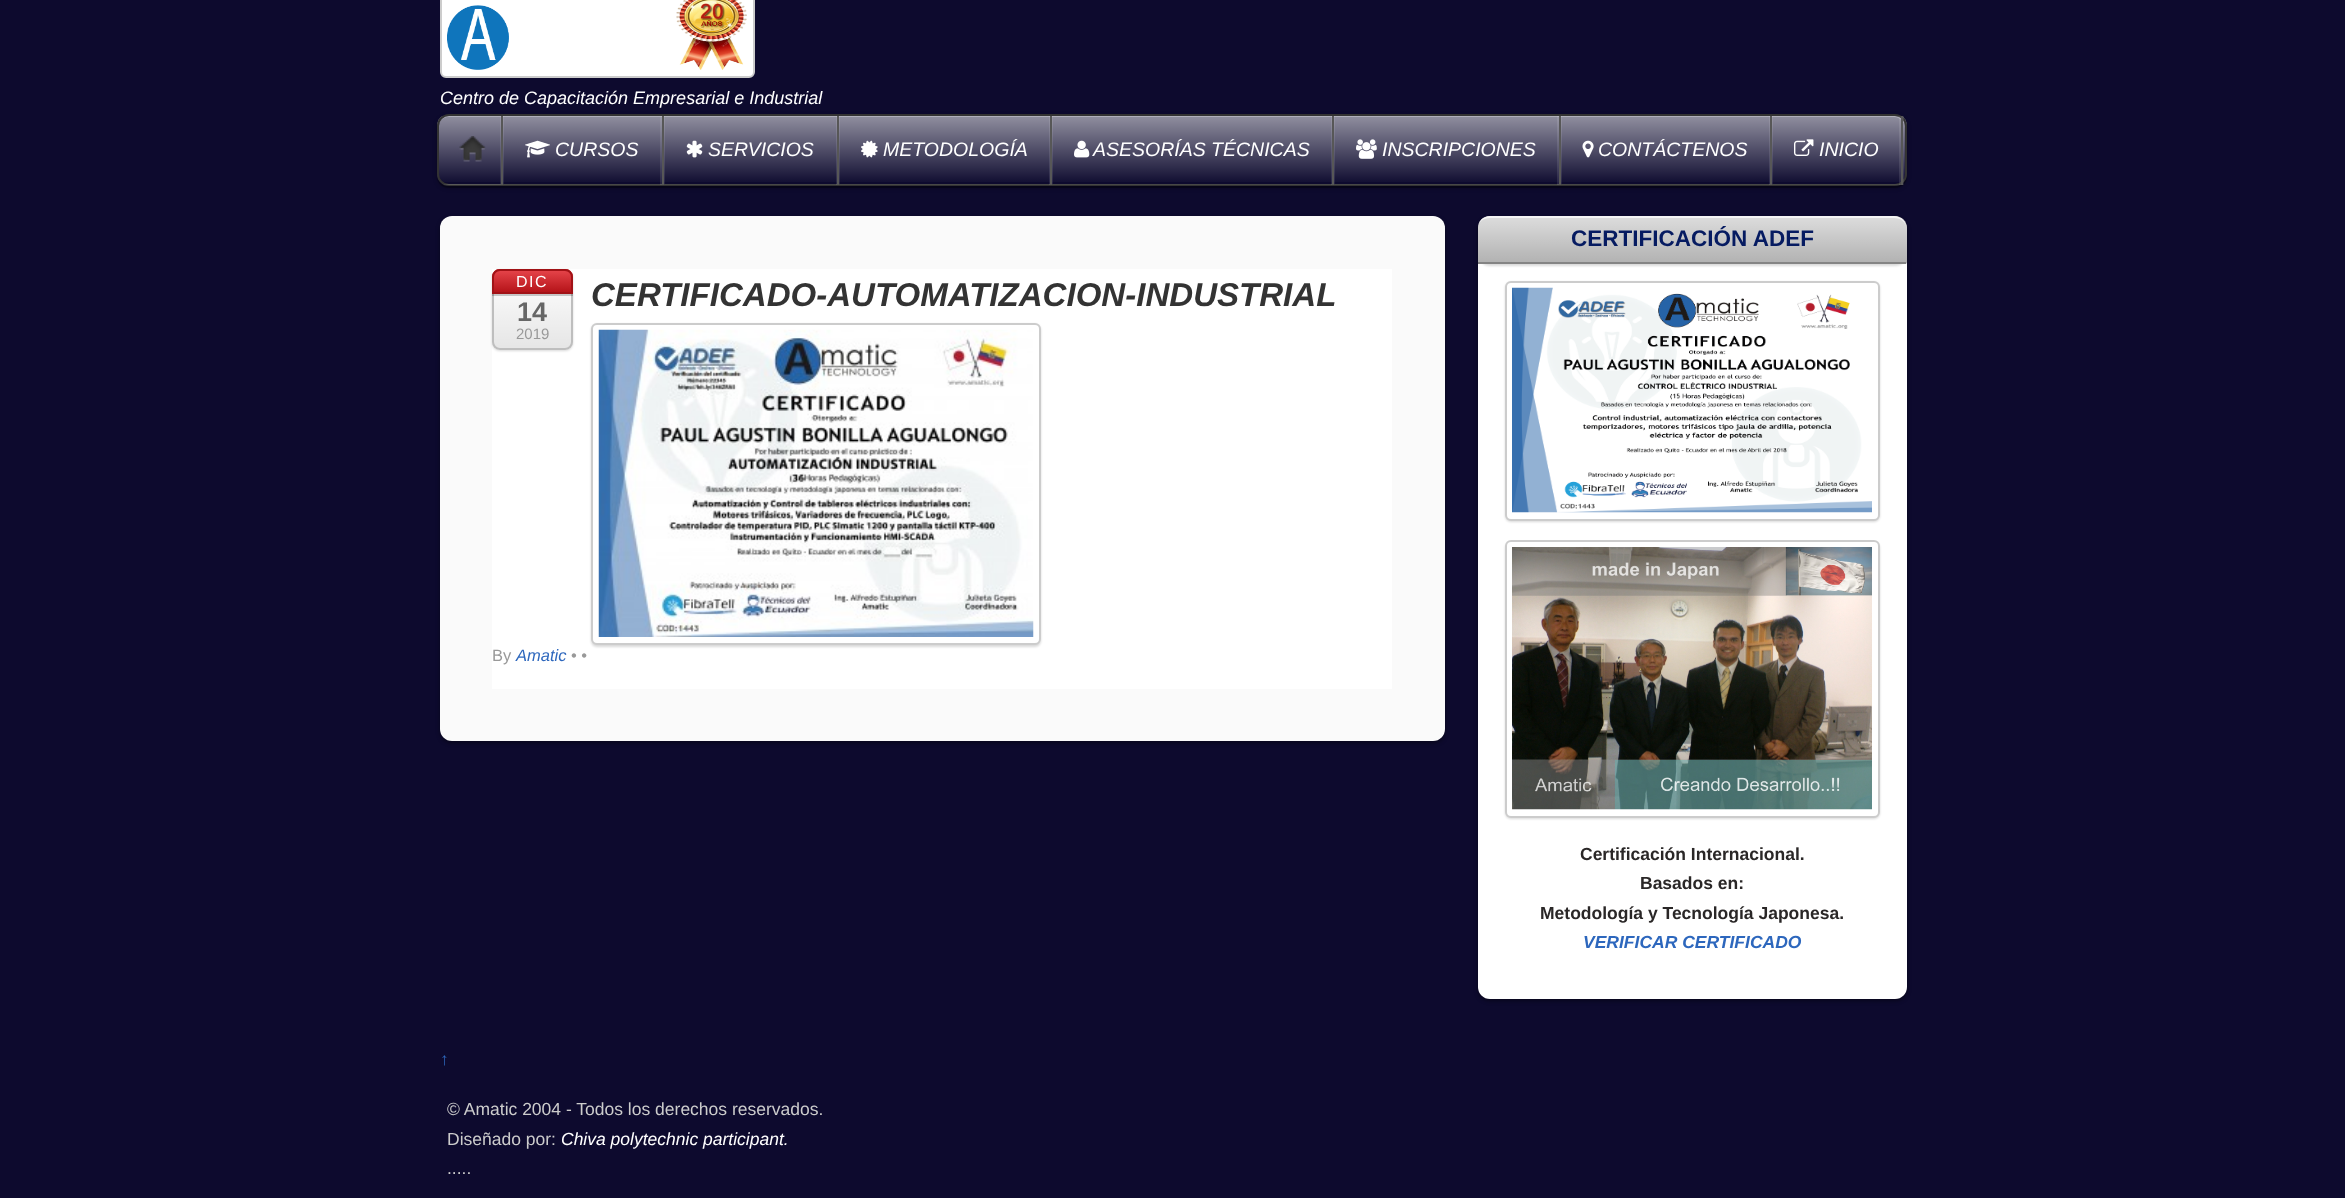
<svg xmlns="http://www.w3.org/2000/svg" xmlns:xlink="http://www.w3.org/1999/xlink" width="2345" height="1198" viewBox="0 0 2345 1198">
<style>
.cls-1{font:italic 18px Liberation Sans;fill:#ffffff}
.cls-2{font:italic 19.5px Liberation Sans;fill:#ffffff}
.cls-3{font:16px Liberation Sans;letter-spacing:1.5px;fill:#ffffff}
.cls-4{font:bold 27px Liberation Sans;fill:#666666}
.cls-5{font:15px Liberation Sans;fill:#999999}
.cls-6{font:italic bold 33.05px Liberation Sans;fill:#333333}
.cls-7{font:16.5px Liberation Sans;fill:#999999}
.cls-8{font:italic 16.5px Liberation Sans;fill:#2d67bd}
.cls-9{font:bold 22.5px Liberation Sans;fill:#061b61}
.cls-10{font:bold 17.5px Liberation Sans;fill:#2a2727}
.cls-11{font:italic bold 17.5px Liberation Sans;fill:#2d67bd}
.cls-12{font:italic 17.5px Liberation Sans;fill:#2d67bd}
.cls-13{font:17.5px Liberation Sans;fill:#cccccc}
.cls-14{font:italic 17.5px Liberation Sans;fill:#ffffff}
</style>
<defs>
<clipPath id="clip1"><path d="M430 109H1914V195H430ZM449 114H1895C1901.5 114 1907 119.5 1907 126V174C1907 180.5 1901.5 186 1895 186H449C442.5 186 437 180.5 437 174V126C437 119.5 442.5 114 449 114Z" clip-rule="evenodd"/></clipPath>
<clipPath id="clip2"><rect x="437" y="114" width="1470" height="72" rx="12"/></clipPath>
<linearGradient id="g1" gradientUnits="userSpaceOnUse" x1="1172" y1="115" x2="1172" y2="185"><stop offset="0" stop-color="#ffffff" stop-opacity="0.55"/><stop offset="1" stop-color="#ffffff" stop-opacity="0"/></linearGradient>
<clipPath id="clip3"><rect x="492" y="269" width="81" height="81" rx="8"/></clipPath>
<linearGradient id="g2" gradientUnits="userSpaceOnUse" x1="533" y1="270" x2="533" y2="348"><stop offset="0" stop-color="#000000" stop-opacity="0"/><stop offset="1" stop-color="#000000" stop-opacity="0.1"/></linearGradient>
<clipPath id="clip4"><path d="M500 269H565C569.5 269 573 272.5 573 277V294H492V277C492 272.5 495.5 269 500 269Z"/></clipPath>
<linearGradient id="g3" gradientUnits="userSpaceOnUse" x1="533" y1="270" x2="533" y2="293"><stop offset="0" stop-color="#ffffff" stop-opacity="0.2"/><stop offset="1" stop-color="#000000" stop-opacity="0.2"/></linearGradient>
<clipPath id="clip5"><path d="M1490 216H1895C1901.5 216 1907 221.5 1907 228V264H1478V228C1478 221.5 1483.5 216 1490 216Z"/></clipPath>
<linearGradient id="g4" gradientUnits="userSpaceOnUse" x1="1692" y1="172" x2="1692" y2="218"><stop offset="0" stop-color="#ffffff" stop-opacity="0.6"/><stop offset="1" stop-color="#ffffff" stop-opacity="0.1"/></linearGradient>
<linearGradient id="g5" gradientUnits="userSpaceOnUse" x1="1692" y1="217" x2="1692" y2="263"><stop offset="0" stop-color="#ffffff" stop-opacity="0.6"/><stop offset="1" stop-color="#ffffff" stop-opacity="0.1"/></linearGradient>
<linearGradient id="g6" gradientUnits="userSpaceOnUse" x1="1692" y1="262" x2="1692" y2="308"><stop offset="0" stop-color="#dddddd"/><stop offset="1" stop-color="#b2b2b2"/></linearGradient>
</defs>
<rect width="100%" height="100%" fill="#0d0a2e"/>
<rect fill="#ffffff" stroke="#cccccc" stroke-width="2" x="441" y="-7" width="313" height="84" rx="5"/>
<image xlink:href="image0.png" x="447" y="0" width="300" height="70"/>
<g clip-path="url(#clip1)">
<rect fill="#000000" fill-opacity="0.3" filter="blur(2px)" x="437" y="116" width="1470" height="72" rx="12"/>
</g>
<path fill="#000000" fill-opacity="0.3" d="M437 178C438 184 443 188 449 188H1895C1902 188 1907 183 1907 176V128L1906 124V174C1906 181 1901 186 1894 186H448C443 186 439 183 437 178Z"/>
<g clip-path="url(#clip2)">
<rect fill="url(#g1)" x="437" y="116" width="1470" height="66"/>
</g>
<path fill="#ffffff" fill-opacity="0.3" d="M448 117H1894C1900 117 1905 122 1905 128V127C1905 121 1900 116 1894 116H449C443 116 438 121 438 127V128C438 122 443 117 448 117Z"/>
<rect fill="none" stroke="#333333" stroke-width="2" x="438" y="115" width="1468" height="70" rx="11"/>
<path fill="#ffffff" fill-opacity="0.1" d="M446 184L449 185H504V116H502V184Z"/>
<path fill="#ffffff" fill-opacity="0.1" d="M441 183C443 184 445 185 447 185H501V116H500V184H446C444 184 443 184 441 183Z"/>
<rect fill="#575757" x="501" y="116" width="2" height="69"/>
<image xlink:href="image1.png" x="459" y="136" width="27" height="26"/>
<path fill="#ffffff" fill-opacity="0.1" d="M504 184V185H665V116H663V184Z"/>
<rect fill="#ffffff" fill-opacity="0.1" x="660" y="116" width="2" height="69"/>
<rect fill="#575757" x="662" y="116" width="2" height="69"/>
<image xlink:href="image2.png" x="525" y="140" width="25" height="18"/>
<path fill="#ffffff" fill-opacity="0.1" d="M665 184V185H840V116H838V184Z"/>
<rect fill="#ffffff" fill-opacity="0.1" x="836" y="116" width="1" height="69"/>
<rect fill="#575757" x="837" y="116" width="2" height="69"/>
<image xlink:href="image3.png" x="686" y="140" width="17" height="18"/>
<path fill="#ffffff" fill-opacity="0.1" d="M840 184V185H1053V116H1052V184Z"/>
<rect fill="#ffffff" fill-opacity="0.1" x="1049" y="116" width="1" height="69"/>
<rect fill="#575757" x="1050" y="116" width="2" height="69"/>
<image xlink:href="image4.png" x="861" y="140" width="17" height="18"/>
<path fill="#ffffff" fill-opacity="0.1" d="M1053 184V185H1335V116H1334V184Z"/>
<rect fill="#ffffff" fill-opacity="0.1" x="1331" y="116" width="1" height="69"/>
<rect fill="#575757" x="1332" y="116" width="2" height="69"/>
<image xlink:href="image5.png" x="1074" y="140" width="16" height="18"/>
<path fill="#ffffff" fill-opacity="0.1" d="M1335 184V185H1562V116H1560V184Z"/>
<rect fill="#ffffff" fill-opacity="0.1" x="1557" y="116" width="2" height="69"/>
<rect fill="#575757" x="1559" y="116" width="2" height="69"/>
<image xlink:href="image6.png" x="1356" y="139" width="21" height="20"/>
<path fill="#ffffff" fill-opacity="0.1" d="M1562 184V185H1773V116H1772V184Z"/>
<rect fill="#ffffff" fill-opacity="0.1" x="1769" y="116" width="1" height="69"/>
<rect fill="#575757" x="1770" y="116" width="2" height="69"/>
<image xlink:href="image7.png" x="1582" y="140" width="12" height="18"/>
<path fill="#ffffff" fill-opacity="0.1" d="M1773 184V185H1904V116H1902V184Z"/>
<rect fill="#ffffff" fill-opacity="0.1" x="1899" y="116" width="2" height="69"/>
<rect fill="#575757" x="1901" y="116" width="2" height="69"/>
<image xlink:href="image8.png" x="1794" y="139" width="20" height="17"/>
<rect fill="#000000" fill-opacity="0.4" filter="blur(2px)" x="440" y="218" width="1005" height="525" rx="12"/>
<rect fill="#fafafa" x="440" y="216" width="1005" height="525" rx="12"/>
<rect fill="#ffffff" x="492" y="269" width="900" height="420"/>
<rect fill="#000000" fill-opacity="0.15" filter="blur(1px)" x="492" y="270" width="81" height="81" rx="8"/>
<rect fill="#ffffff" x="492" y="269" width="81" height="81" rx="8"/>
<g clip-path="url(#clip3)">
<rect fill="url(#g2)" x="492" y="294" width="81" height="54"/>
</g>
<rect fill="none" stroke="#bebebe" stroke-width="2" x="493" y="270" width="79" height="79" rx="7"/>
<rect fill="#000000" fill-opacity="0.2" x="492" y="294" width="81" height="2"/>
<path fill="#e0161d" d="M500 269H565C569.5 269 573 272.5 573 277V294H492V277C492 272.5 495.5 269 500 269Z"/>
<g clip-path="url(#clip4)">
<rect fill="url(#g3)" x="492" y="270" width="81" height="22"/>
</g>
<path fill="none" stroke="#a11216" stroke-width="2" d="M500 270H565C569 270 572 273 572 277V293H493V277C493 273 496 270 500 270Z"/>
<rect fill="#000000" fill-opacity="0.15" filter="blur(1px)" x="591" y="324" width="450" height="323" rx="6"/>
<rect fill="#ffffff" stroke="#cccccc" stroke-width="2" x="592" y="324" width="448" height="320" rx="5"/>
<image xlink:href="image9.png" x="598" y="329" width="436" height="308"/>
<rect fill="#000000" fill-opacity="0.4" filter="blur(2px)" x="1478" y="219" width="429" height="782" rx="12"/>
<rect fill="#ffffff" x="1478" y="218" width="429" height="781" rx="12"/>
<rect fill="#000000" fill-opacity="0.15" filter="blur(1px)" x="1478" y="218" width="429" height="48" rx="12"/>
<path fill="#a9a9a9" d="M1490 216H1895C1901.5 216 1907 221.5 1907 228V264H1478V228C1478 221.5 1483.5 216 1490 216Z"/>
<g clip-path="url(#clip5)">
<rect fill="url(#g4)" x="1478" y="216" width="429" height="2"/>
<rect fill="url(#g5)" x="1478" y="218" width="429" height="45"/>
</g>
<rect fill="url(#g6)" x="1906" y="263" width="1" height="1"/>
<path fill="#f5f5f5" d="M1490 216C1483 216 1478 221 1478 228C1478 222 1483 218 1490 218H1894C1901 218 1906 222 1906 228C1906 221 1901 216 1894 216Z"/>
<rect fill="#848484" x="1478" y="262" width="428" height="2"/>
<rect fill="#000000" fill-opacity="0.15" filter="blur(1px)" x="1505" y="282" width="375" height="240" rx="6"/>
<rect fill="#ffffff" stroke="#cccccc" stroke-width="2" x="1506" y="282" width="373" height="238" rx="5"/>
<image xlink:href="image10.png" x="1512" y="287" width="360" height="226"/>
<rect fill="#000000" fill-opacity="0.15" filter="blur(1px)" x="1505" y="542" width="375" height="277" rx="6"/>
<rect fill="#ffffff" stroke="#cccccc" stroke-width="2" x="1506" y="541" width="373" height="276" rx="5"/>
<image xlink:href="image11.png" x="1512" y="547" width="360" height="263"/>
<text class="cls-1" x="440" y="104">Centro de Capacitación Empresarial e Industrial</text>
<text class="cls-2" x="555" y="156">CURSOS</text>
<text class="cls-2" x="708" y="156">SERVICIOS</text>
<text class="cls-2" x="883" y="156">METODOLOGÍA</text>
<text class="cls-2" x="1093" y="156">ASESORÍAS TÉCNICAS</text>
<text class="cls-2" x="1382" y="156">INSCRIPCIONES</text>
<text class="cls-2" x="1598" y="156">CONTÁCTENOS</text>
<text class="cls-2" x="1819" y="156">INICIO</text>
<text class="cls-3" x="516" y="287">DIC</text>
<text class="cls-4" x="517" y="321">14</text>
<text class="cls-5" x="516" y="339">2019</text>
<text class="cls-6" x="591" y="306">CERTIFICADO-AUTOMATIZACION-INDUSTRIAL</text>
<text class="cls-7" x="492" y="661">By</text>
<text class="cls-8" x="516" y="661">Amatic</text>
<text class="cls-7" x="571" y="661">• •</text>
<text class="cls-9" x="1571" y="246">CERTIFICACIÓN ADEF</text>
<text class="cls-10" x="1580" y="860">Certificación Internacional.</text>
<text class="cls-10" x="1640" y="889">Basados en:</text>
<text class="cls-10" x="1540" y="919">Metodología y Tecnología Japonesa.</text>
<text class="cls-11" x="1583" y="948">VERIFICAR CERTIFICADO</text>
<text class="cls-12" x="440" y="1065">↑</text>
<text class="cls-13"><tspan x="447" y="1115">© Amatic 2004 - Todos los derechos reservados.</tspan><tspan x="447" y="1145">Diseñado por:</tspan></text>
<text class="cls-14" x="561" y="1145">Chiva polytechnic participant.</text>
<text class="cls-13" x="447" y="1174">.....</text>
</svg>
